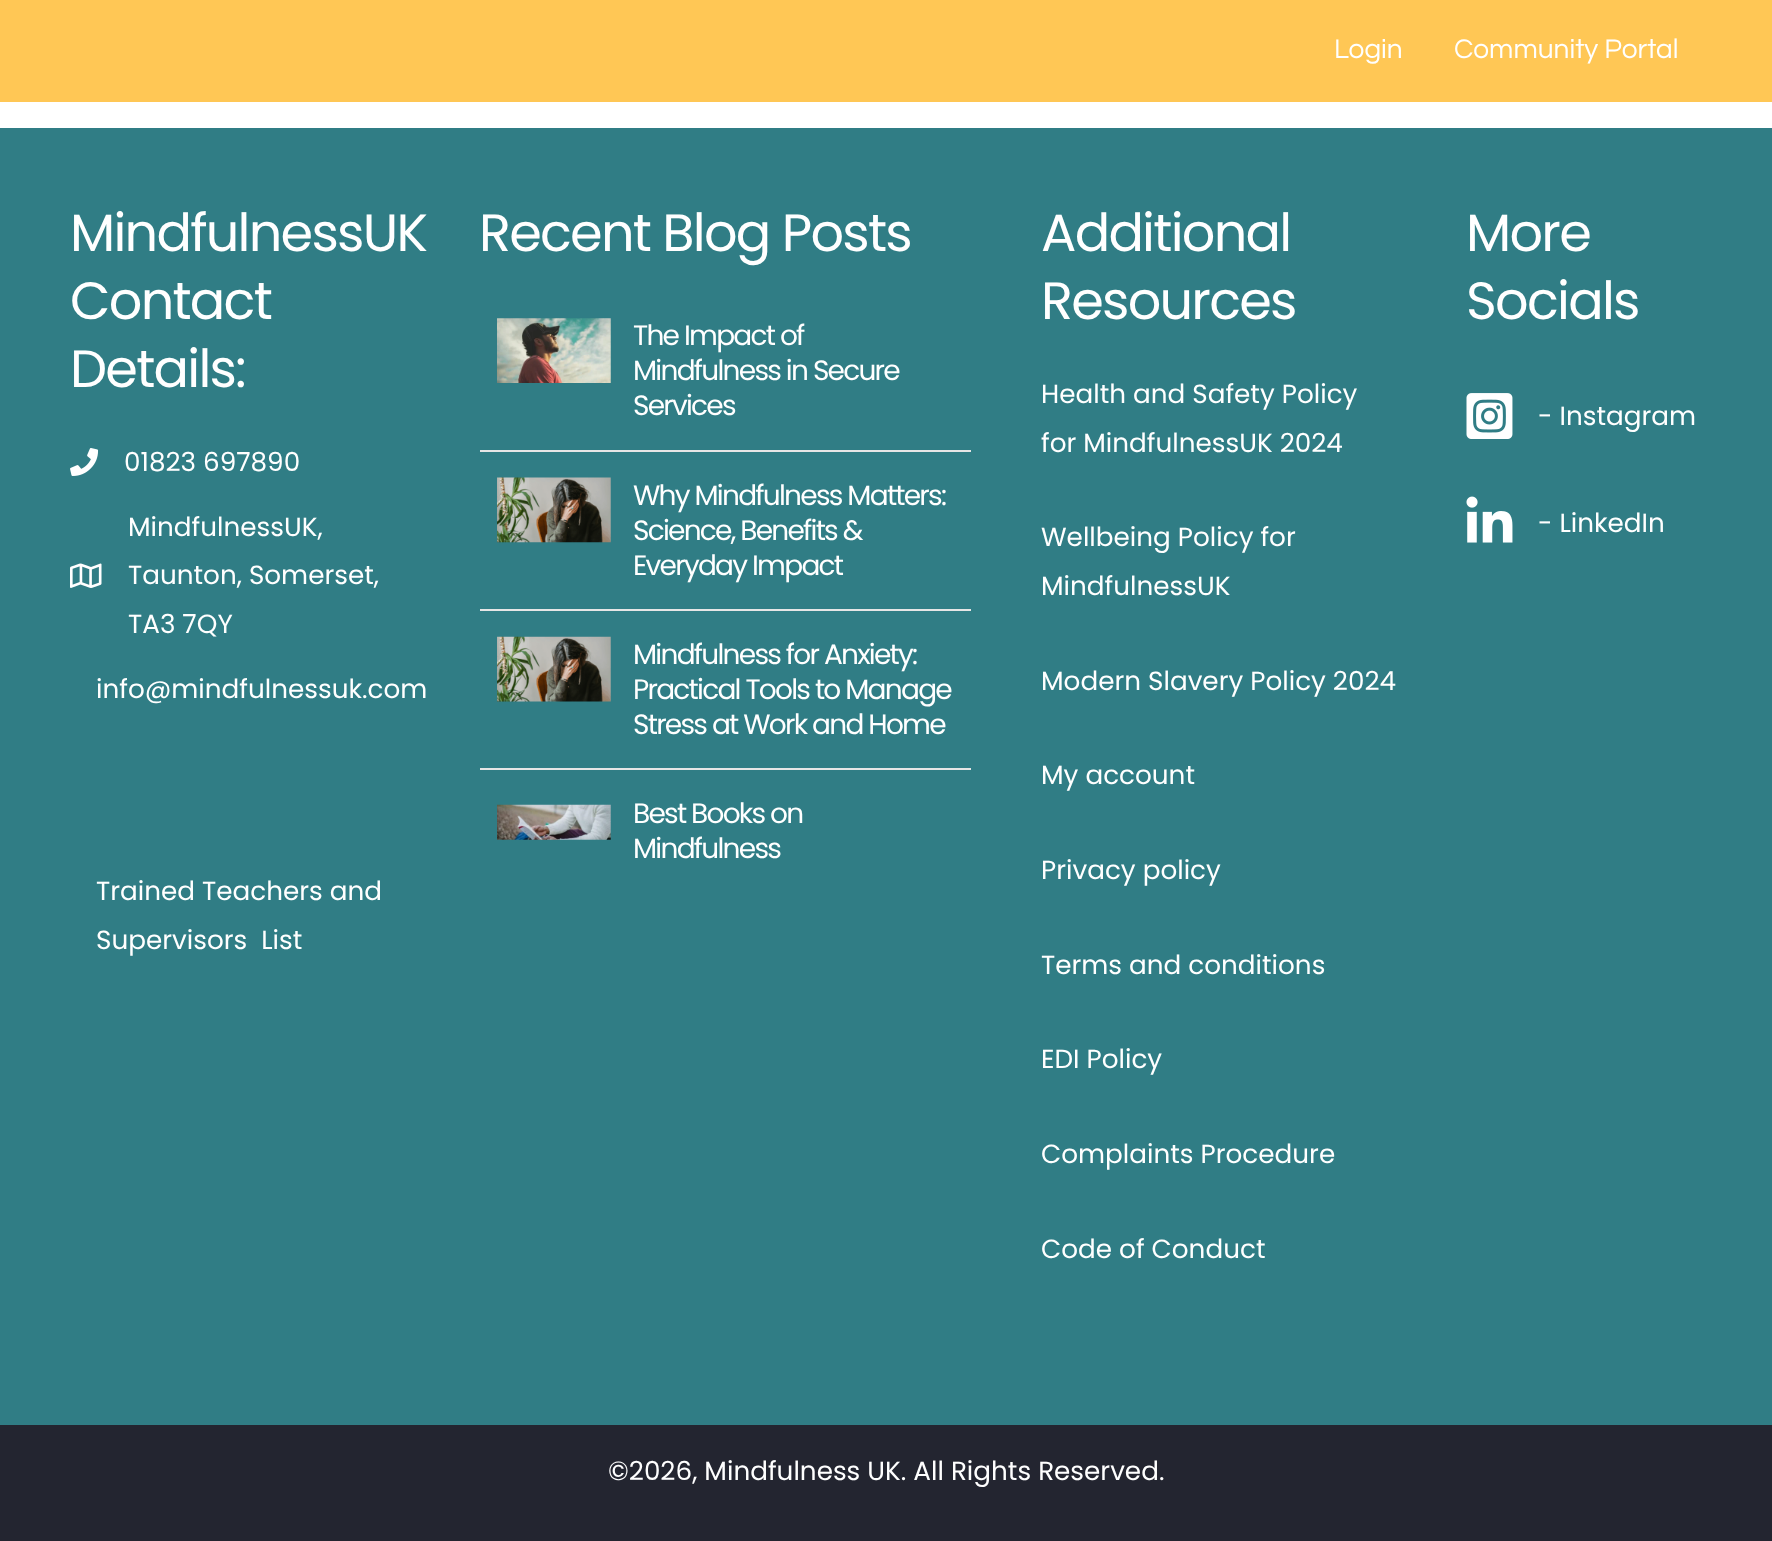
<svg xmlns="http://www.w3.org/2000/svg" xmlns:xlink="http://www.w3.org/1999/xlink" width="1772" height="1541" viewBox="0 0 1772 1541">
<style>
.cls-1{font:28px Questrial;fill:#ffffff}
.cls-2{font:52.5px Poppins;letter-spacing:-1.75px;fill:#ffffff}
.cls-3{font:26.25px Poppins;fill:#ffffff}
.cls-4{font:28px Poppins;letter-spacing:-1.75px;fill:#ffffff}
</style>
<rect width="100%" height="100%" fill="#ffffff"/>
<rect fill="#ffc755" x="0" y="0" width="1772" height="102"/>
<rect fill="#307d85" x="0" y="128" width="1772" height="1297"/>
<image xlink:href="image0.png" x="70" y="448" width="29" height="28"/>
<image xlink:href="image1.png" x="70" y="563" width="32" height="25"/>
<rect fill="#e6e6e6" x="480" y="450" width="491" height="2"/>
<image xlink:href="image2.png" x="497" y="318" width="114" height="65"/>
<rect fill="#e6e6e6" x="480" y="609" width="491" height="2"/>
<image xlink:href="image3.png" x="497" y="477" width="114" height="66"/>
<rect fill="#e6e6e6" x="480" y="768" width="491" height="2"/>
<image xlink:href="image4.png" x="497" y="636" width="114" height="66"/>
<image xlink:href="image5.png" x="497" y="804" width="114" height="36"/>
<image xlink:href="image6.png" x="1466" y="393" width="47" height="46"/>
<image xlink:href="image7.png" x="1466" y="496" width="47" height="47"/>
<rect fill="#232530" x="0" y="1425" width="1772" height="116"/>
<text class="cls-1" x="1334" y="58">Login</text>
<text class="cls-1" x="1454" y="58">Community Portal</text>
<text class="cls-2"><tspan x="70" y="251">MindfulnessUK</tspan><tspan x="70" y="319">Contact</tspan><tspan x="70" y="387">Details:</tspan></text>
<text class="cls-3" x="124" y="471">01823 697890</text>
<text class="cls-3"><tspan x="128" y="536">MindfulnessUK,</tspan><tspan x="128" y="584">Taunton, Somerset,</tspan><tspan x="128" y="633">TA3 7QY</tspan></text>
<text class="cls-3" x="96" y="698">info@mindfulnessuk.com</text>
<text class="cls-3" xml:space="preserve"><tspan x="96" y="900">Trained Teachers and</tspan><tspan x="96" y="949">Supervisors  List</tspan></text>
<text class="cls-2" x="479" y="251">Recent Blog Posts</text>
<text class="cls-4"><tspan x="633" y="345">The Impact of</tspan><tspan x="633" y="380">Mindfulness in Secure</tspan><tspan x="633" y="415">Services</tspan></text>
<text class="cls-4"><tspan x="633" y="505">Why Mindfulness Matters:</tspan><tspan x="633" y="540">Science, Benefits &amp;</tspan><tspan x="633" y="575">Everyday Impact</tspan></text>
<text class="cls-4"><tspan x="633" y="664">Mindfulness for Anxiety:</tspan><tspan x="633" y="699">Practical Tools to Manage</tspan><tspan x="633" y="734">Stress at Work and Home</tspan></text>
<text class="cls-4"><tspan x="633" y="823">Best Books on</tspan><tspan x="633" y="858">Mindfulness</tspan></text>
<text class="cls-2"><tspan x="1041" y="251">Additional</tspan><tspan x="1041" y="319">Resources</tspan></text>
<text class="cls-3"><tspan x="1041" y="403">Health and Safety Policy</tspan><tspan x="1041" y="452">for MindfulnessUK 2024</tspan></text>
<text class="cls-3"><tspan x="1041" y="546">Wellbeing Policy for</tspan><tspan x="1041" y="595">MindfulnessUK</tspan></text>
<text class="cls-3" x="1041" y="690">Modern Slavery Policy 2024</text>
<text class="cls-3" x="1041" y="784">My account</text>
<text class="cls-3" x="1041" y="879">Privacy policy</text>
<text class="cls-3" x="1041" y="974">Terms and conditions</text>
<text class="cls-3" x="1041" y="1068">EDI Policy</text>
<text class="cls-3" x="1041" y="1163">Complaints Procedure</text>
<text class="cls-3" x="1041" y="1258">Code of Conduct</text>
<text class="cls-2"><tspan x="1466" y="251">More</tspan><tspan x="1466" y="319">Socials</tspan></text>
<text class="cls-3" x="1538" y="425">- Instagram</text>
<text class="cls-3" x="1538" y="532">- LinkedIn</text>
<text class="cls-3" x="608" y="1480">©2026, Mindfulness UK. All Rights Reserved.</text>
</svg>
